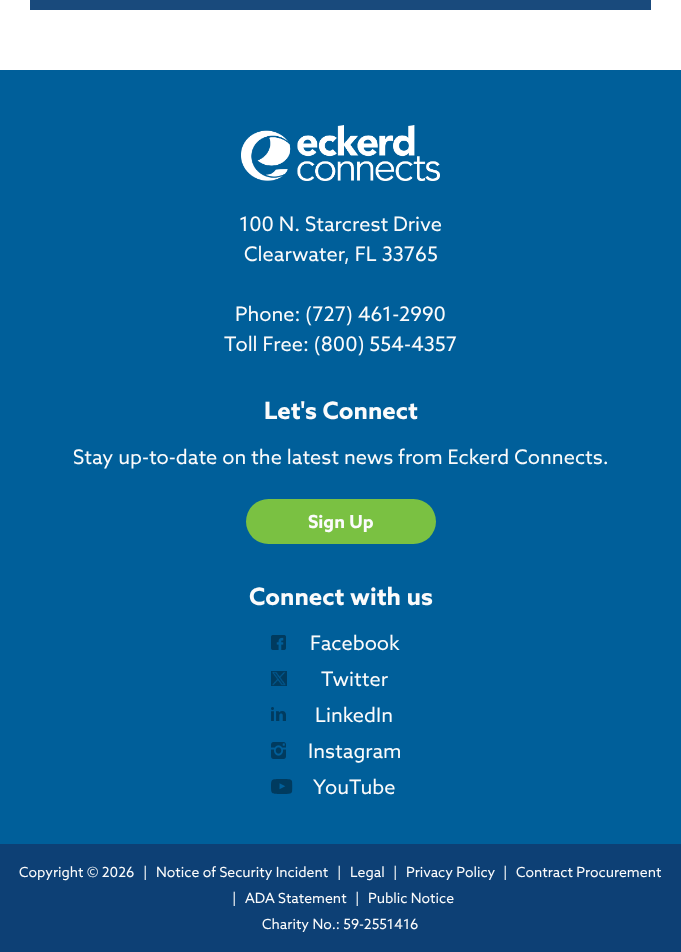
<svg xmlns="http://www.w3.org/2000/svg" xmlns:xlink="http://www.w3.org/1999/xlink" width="681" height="952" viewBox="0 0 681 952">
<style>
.cls-1{font:20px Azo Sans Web;fill:#fbfbfb}
.cls-2{font:bold 24px Azo Sans Web;fill:#fbfbfb}
.cls-3{font:bold 18px Azo Sans Web;fill:#fbfbfb}
.cls-4{font:14px Azo Sans Web;fill:#fbfbfb}
</style>
<rect width="100%" height="100%" fill="#ffffff"/>
<rect fill="#194a7c" x="30" y="0" width="621" height="10"/>
<rect fill="#005f9a" x="0" y="70" width="681" height="774"/>
<image xlink:href="image0.png" x="241" y="125" width="199" height="56"/>
<rect fill="#7ac142" x="246" y="499" width="190" height="45" rx="22.5"/>
<image xlink:href="image1.png" x="271" y="635" width="15" height="15"/>
<image xlink:href="image2.png" x="271" y="671" width="16" height="15"/>
<image xlink:href="image3.png" x="271" y="707" width="15" height="14"/>
<image xlink:href="image4.png" x="271" y="742" width="15" height="17"/>
<image xlink:href="image5.png" x="271" y="779" width="22" height="15"/>
<rect fill="#0d4075" x="0" y="844" width="681" height="108"/>
<text class="cls-1" x="239" y="231">100 N. Starcrest Drive</text>
<text class="cls-1" x="244" y="261">Clearwater, FL 33765</text>
<text class="cls-1" x="235" y="321">Phone: (727) 461-2990</text>
<text class="cls-1" x="224" y="351">Toll Free: (800) 554-4357</text>
<text class="cls-2" x="264" y="419">Let's Connect</text>
<text class="cls-1" x="73" y="464">Stay up-to-date on the latest news from Eckerd Connects.</text>
<text class="cls-3" x="308" y="528">Sign Up</text>
<text class="cls-2" x="249" y="605">Connect with us</text>
<text class="cls-1" x="310" y="650">Facebook</text>
<text class="cls-1" x="321" y="686">Twitter</text>
<text class="cls-1" x="315" y="722">LinkedIn</text>
<text class="cls-1" x="308" y="758">Instagram</text>
<text class="cls-1" x="313" y="794">YouTube</text>
<text class="cls-4" x="19" y="877">Copyright © 2026</text>
<text class="cls-4" x="143" y="877">|</text>
<text class="cls-4" x="156" y="877">Notice of Security Incident</text>
<text class="cls-4" x="337" y="877">|</text>
<text class="cls-4" x="350" y="877">Legal</text>
<text class="cls-4" x="393" y="877">|</text>
<text class="cls-4" x="406" y="877">Privacy Policy</text>
<text class="cls-4" x="503" y="877">|</text>
<text class="cls-4" x="516" y="877">Contract Procurement</text>
<text class="cls-4" x="232" y="903">|</text>
<text class="cls-4" x="245" y="903">ADA Statement</text>
<text class="cls-4" x="355" y="903">|</text>
<text class="cls-4" x="368" y="903">Public Notice</text>
<text class="cls-4" x="262" y="929">Charity No.: 59-2551416</text>
</svg>
